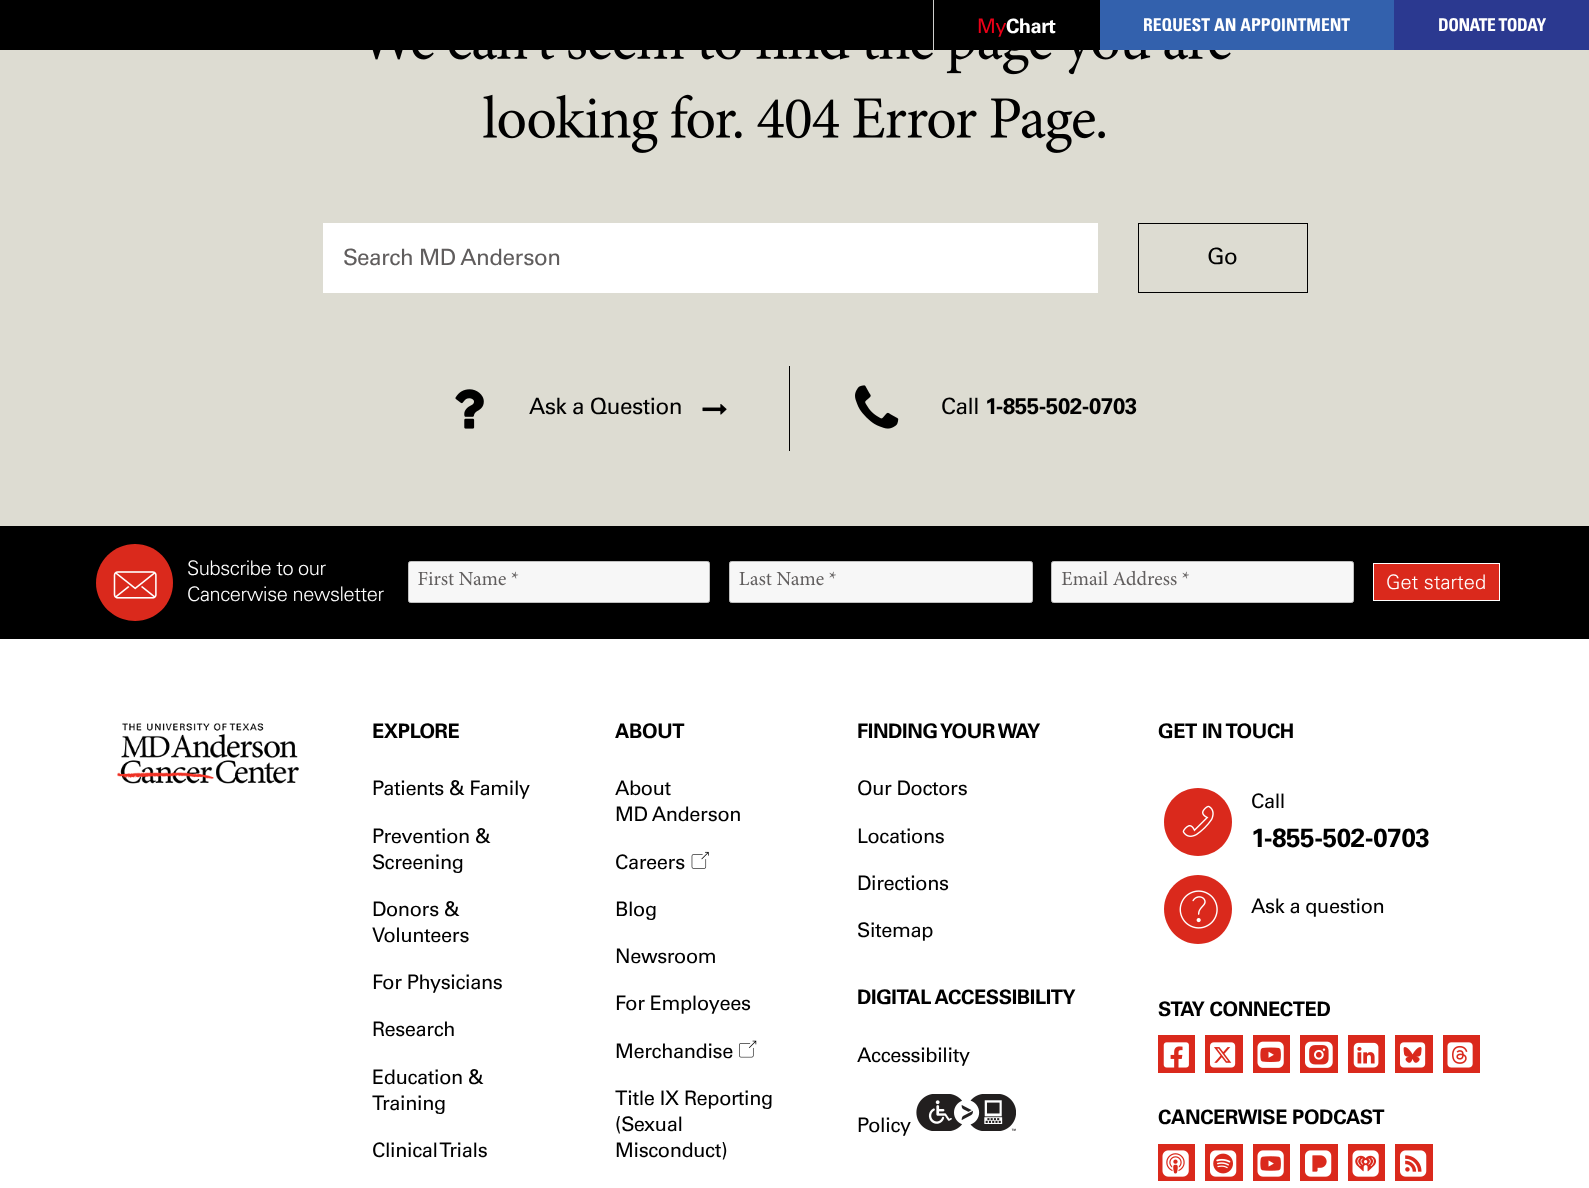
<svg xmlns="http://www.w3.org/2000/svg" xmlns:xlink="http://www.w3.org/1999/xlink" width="1589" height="1188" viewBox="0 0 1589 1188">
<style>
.cls-1{font:20px 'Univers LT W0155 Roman';letter-spacing:-0.5px;fill:#ea0118}
.cls-2{font:bold 20px 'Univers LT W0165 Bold';letter-spacing:-0.5px;fill:#ffffff}
.cls-3{font:bold 17.5px 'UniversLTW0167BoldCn';fill:#ffffff}
.cls-4{font:bold 17.5px 'UniversLTW0167BoldCn';letter-spacing:-0.5px;fill:#ffffff}
.cls-5{font:22.5px 'Univers LT W0155 Roman';letter-spacing:-0.5px;fill:#605d5d}
.cls-6{font:22.5px 'Univers LT W0155 Roman';letter-spacing:-0.5px;fill:#000000}
.cls-7{font:bold 22.5px 'Univers LT W0165 Bold';letter-spacing:-0.5px;fill:#000000}
.cls-8{font:300 20px 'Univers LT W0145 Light';letter-spacing:-0.4px;fill:#ffffff}
.cls-9{font:300 20px 'Univers LT W0145 Light';fill:#ffffff}
.cls-10{font:bold 20px 'Univers LT W0165 Bold';letter-spacing:-0.4px;fill:#000000}
.cls-11{font:20px 'Univers LT W0155 Roman';letter-spacing:-0.4px;fill:#000000}
.cls-12{font:bold 26.25px 'Univers LT W0165 Bold';letter-spacing:-0.5px;fill:#000000}
</style>
<rect width="100%" height="100%" fill="#ffffff"/>
<rect fill="#000000" x="0" y="0" width="1100" height="50"/>
<rect fill="#d0d0ce" x="933" y="0" width="1" height="50"/>
<rect fill="#3361ad" x="1100" y="0" width="294" height="50"/>
<rect fill="#2b3990" x="1394" y="0" width="195" height="50"/>
<rect fill="#dddcd2" x="0" y="50" width="1589" height="476"/>
<image xlink:href="image0.png" x="372" y="50" width="859" height="25"/>
<image xlink:href="image1.png" x="483" y="94" width="622" height="59"/>
<rect fill="#ffffff" x="323" y="223" width="775" height="70"/>
<rect fill="none" stroke="#000000" x="1138.5" y="223.5" width="169" height="69"/>
<rect fill="#000000" x="789" y="366" width="1" height="85"/>
<image xlink:href="image2.png" x="455" y="389" width="29" height="40"/>
<image xlink:href="image3.png" x="702" y="404" width="25" height="11"/>
<image xlink:href="image4.png" x="855" y="385" width="44" height="44"/>
<rect fill="#000000" x="0" y="526" width="1589" height="113"/>
<path fill="#da291c" d="M173 583C173 561 156 544 135 544C114 544 96 561 96 583C96 604 114 621 135 621C156 621 173 604 173 583Z"/>
<image xlink:href="image5.png" x="113" y="571" width="44" height="28"/>
<rect fill="#f7f7f7" stroke="#bfbfbf" x="408.5" y="561.5" width="301" height="41" rx="2"/>
<image xlink:href="image6.png" x="418" y="571" width="101" height="15"/>
<rect fill="#f7f7f7" stroke="#bfbfbf" x="729.5" y="561.5" width="303" height="41" rx="2"/>
<image xlink:href="image7.png" x="739" y="571" width="97" height="15"/>
<rect fill="#f7f7f7" stroke="#bfbfbf" x="1051.5" y="561.5" width="302" height="41" rx="2"/>
<image xlink:href="image8.png" x="1061" y="570" width="128" height="16"/>
<rect fill="#da291c" stroke="#ffffff" x="1373.5" y="563.5" width="126" height="37"/>
<image xlink:href="image9.png" x="117" y="723" width="182" height="61"/>
<image xlink:href="image10.png" x="691" y="851" width="18" height="18"/>
<image xlink:href="image11.png" x="739" y="1040" width="18" height="18"/>
<image xlink:href="image12.png" x="916" y="1094" width="100" height="37"/>
<path fill="#da291c" d="M1232 822C1232 803 1217 788 1198 788C1179 788 1164 803 1164 822C1164 841 1179 856 1198 856C1217 856 1232 841 1232 822Z"/>
<image xlink:href="image13.png" x="1182" y="805" width="32" height="32"/>
<path fill="#da291c" d="M1232 909C1232 891 1217 875 1198 875C1179 875 1164 891 1164 909C1164 928 1179 944 1198 944C1217 944 1232 928 1232 909Z"/>
<image xlink:href="image14.png" x="1179" y="890" width="39" height="39"/>
<rect fill="#da291c" x="1158" y="1035" width="37" height="38"/>
<image xlink:href="image15.png" x="1163" y="1042" width="26" height="26"/>
<rect fill="#da291c" x="1205" y="1035" width="38" height="38"/>
<image xlink:href="image16.png" x="1210" y="1042" width="26" height="26"/>
<rect fill="#da291c" x="1253" y="1035" width="37" height="38"/>
<image xlink:href="image17.png" x="1257" y="1041" width="27" height="27"/>
<rect fill="#da291c" x="1300" y="1035" width="38" height="38"/>
<image xlink:href="image18.png" x="1305" y="1041" width="28" height="27"/>
<rect fill="#da291c" x="1348" y="1035" width="37" height="38"/>
<image xlink:href="image19.png" x="1353" y="1042" width="26" height="26"/>
<rect fill="#da291c" x="1395" y="1035" width="38" height="38"/>
<image xlink:href="image20.png" x="1400" y="1042" width="26" height="26"/>
<rect fill="#da291c" x="1443" y="1035" width="37" height="38"/>
<image xlink:href="image21.png" x="1447" y="1042" width="26" height="26"/>
<rect fill="#da291c" x="1158" y="1144" width="37" height="37"/>
<image xlink:href="image22.png" x="1162" y="1150" width="27" height="27"/>
<rect fill="#da291c" x="1205" y="1144" width="38" height="37"/>
<image xlink:href="image23.png" x="1210" y="1150" width="27" height="27"/>
<rect fill="#da291c" x="1253" y="1144" width="37" height="37"/>
<image xlink:href="image24.png" x="1257" y="1150" width="27" height="27"/>
<rect fill="#da291c" x="1300" y="1144" width="38" height="37"/>
<image xlink:href="image25.png" x="1305" y="1150" width="27" height="27"/>
<rect fill="#da291c" x="1348" y="1144" width="37" height="37"/>
<image xlink:href="image26.png" x="1352" y="1150" width="27" height="27"/>
<rect fill="#da291c" x="1395" y="1144" width="38" height="37"/>
<image xlink:href="image27.png" x="1400" y="1150" width="27" height="27"/>
<text class="cls-1" x="977" y="33">My</text>
<text class="cls-2" x="1006" y="33">Chart</text>
<text class="cls-3" x="1143" y="31">REQUEST AN APPOINTMENT</text>
<text class="cls-4" x="1438" y="31">DONATE TODAY</text>
<text class="cls-5" x="343" y="265">Search MD Anderson</text>
<text class="cls-6" x="1207" y="264">Go</text>
<text class="cls-6" x="529" y="414">Ask a Question</text>
<text class="cls-6" x="941" y="414">Call</text>
<text class="cls-7" x="985" y="414">1-855-502-0703</text>
<text class="cls-8"><tspan x="187" y="575">Subscribe to our</tspan><tspan x="187" y="601">Cancerwise newsletter</tspan></text>
<text class="cls-9" x="1386" y="589">Get started</text>
<text class="cls-10" x="372" y="738">EXPLORE</text>
<text class="cls-11" x="372" y="795">Patients &amp; Family</text>
<text class="cls-11"><tspan x="372" y="843">Prevention &amp;</tspan><tspan x="372" y="869">Screening</tspan></text>
<text class="cls-11"><tspan x="372" y="916">Donors &amp;</tspan><tspan x="372" y="942">Volunteers</tspan></text>
<text class="cls-11" x="372" y="989">For Physicians</text>
<text class="cls-11" x="372" y="1036">Research</text>
<text class="cls-11"><tspan x="372" y="1084">Education &amp;</tspan><tspan x="372" y="1110">Training</tspan></text>
<text class="cls-11" x="372" y="1157">Clinical Trials</text>
<text class="cls-10" x="615" y="738">ABOUT</text>
<text class="cls-11"><tspan x="615" y="795">About</tspan><tspan x="615" y="821">MD Anderson</tspan></text>
<text class="cls-11" x="615" y="869">Careers</text>
<text class="cls-11" x="615" y="916">Blog</text>
<text class="cls-11" x="615" y="963">Newsroom</text>
<text class="cls-11" x="615" y="1010">For Employees</text>
<text class="cls-11" x="615" y="1058">Merchandise</text>
<text class="cls-11"><tspan x="615" y="1105">Title IX Reporting</tspan><tspan x="615" y="1131">(Sexual</tspan><tspan x="615" y="1157">Misconduct)</tspan></text>
<text class="cls-10" x="857" y="738">FINDING YOUR WAY</text>
<text class="cls-11" x="857" y="795">Our Doctors</text>
<text class="cls-11" x="857" y="843">Locations</text>
<text class="cls-11" x="857" y="890">Directions</text>
<text class="cls-11" x="857" y="937">Sitemap</text>
<text class="cls-10" x="857" y="1004">DIGITAL ACCESSIBILITY</text>
<text class="cls-11" x="857" y="1062">Accessibility</text>
<text class="cls-11" x="857" y="1132">Policy</text>
<text class="cls-10" x="1158" y="738">GET IN TOUCH</text>
<text class="cls-11" x="1251" y="808">Call</text>
<text class="cls-12" x="1251" y="847">1-855-502-0703</text>
<text class="cls-11" x="1251" y="913">Ask a question</text>
<text class="cls-10" x="1158" y="1016">STAY CONNECTED</text>
<text class="cls-10" x="1158" y="1124">CANCERWISE PODCAST</text>
</svg>
